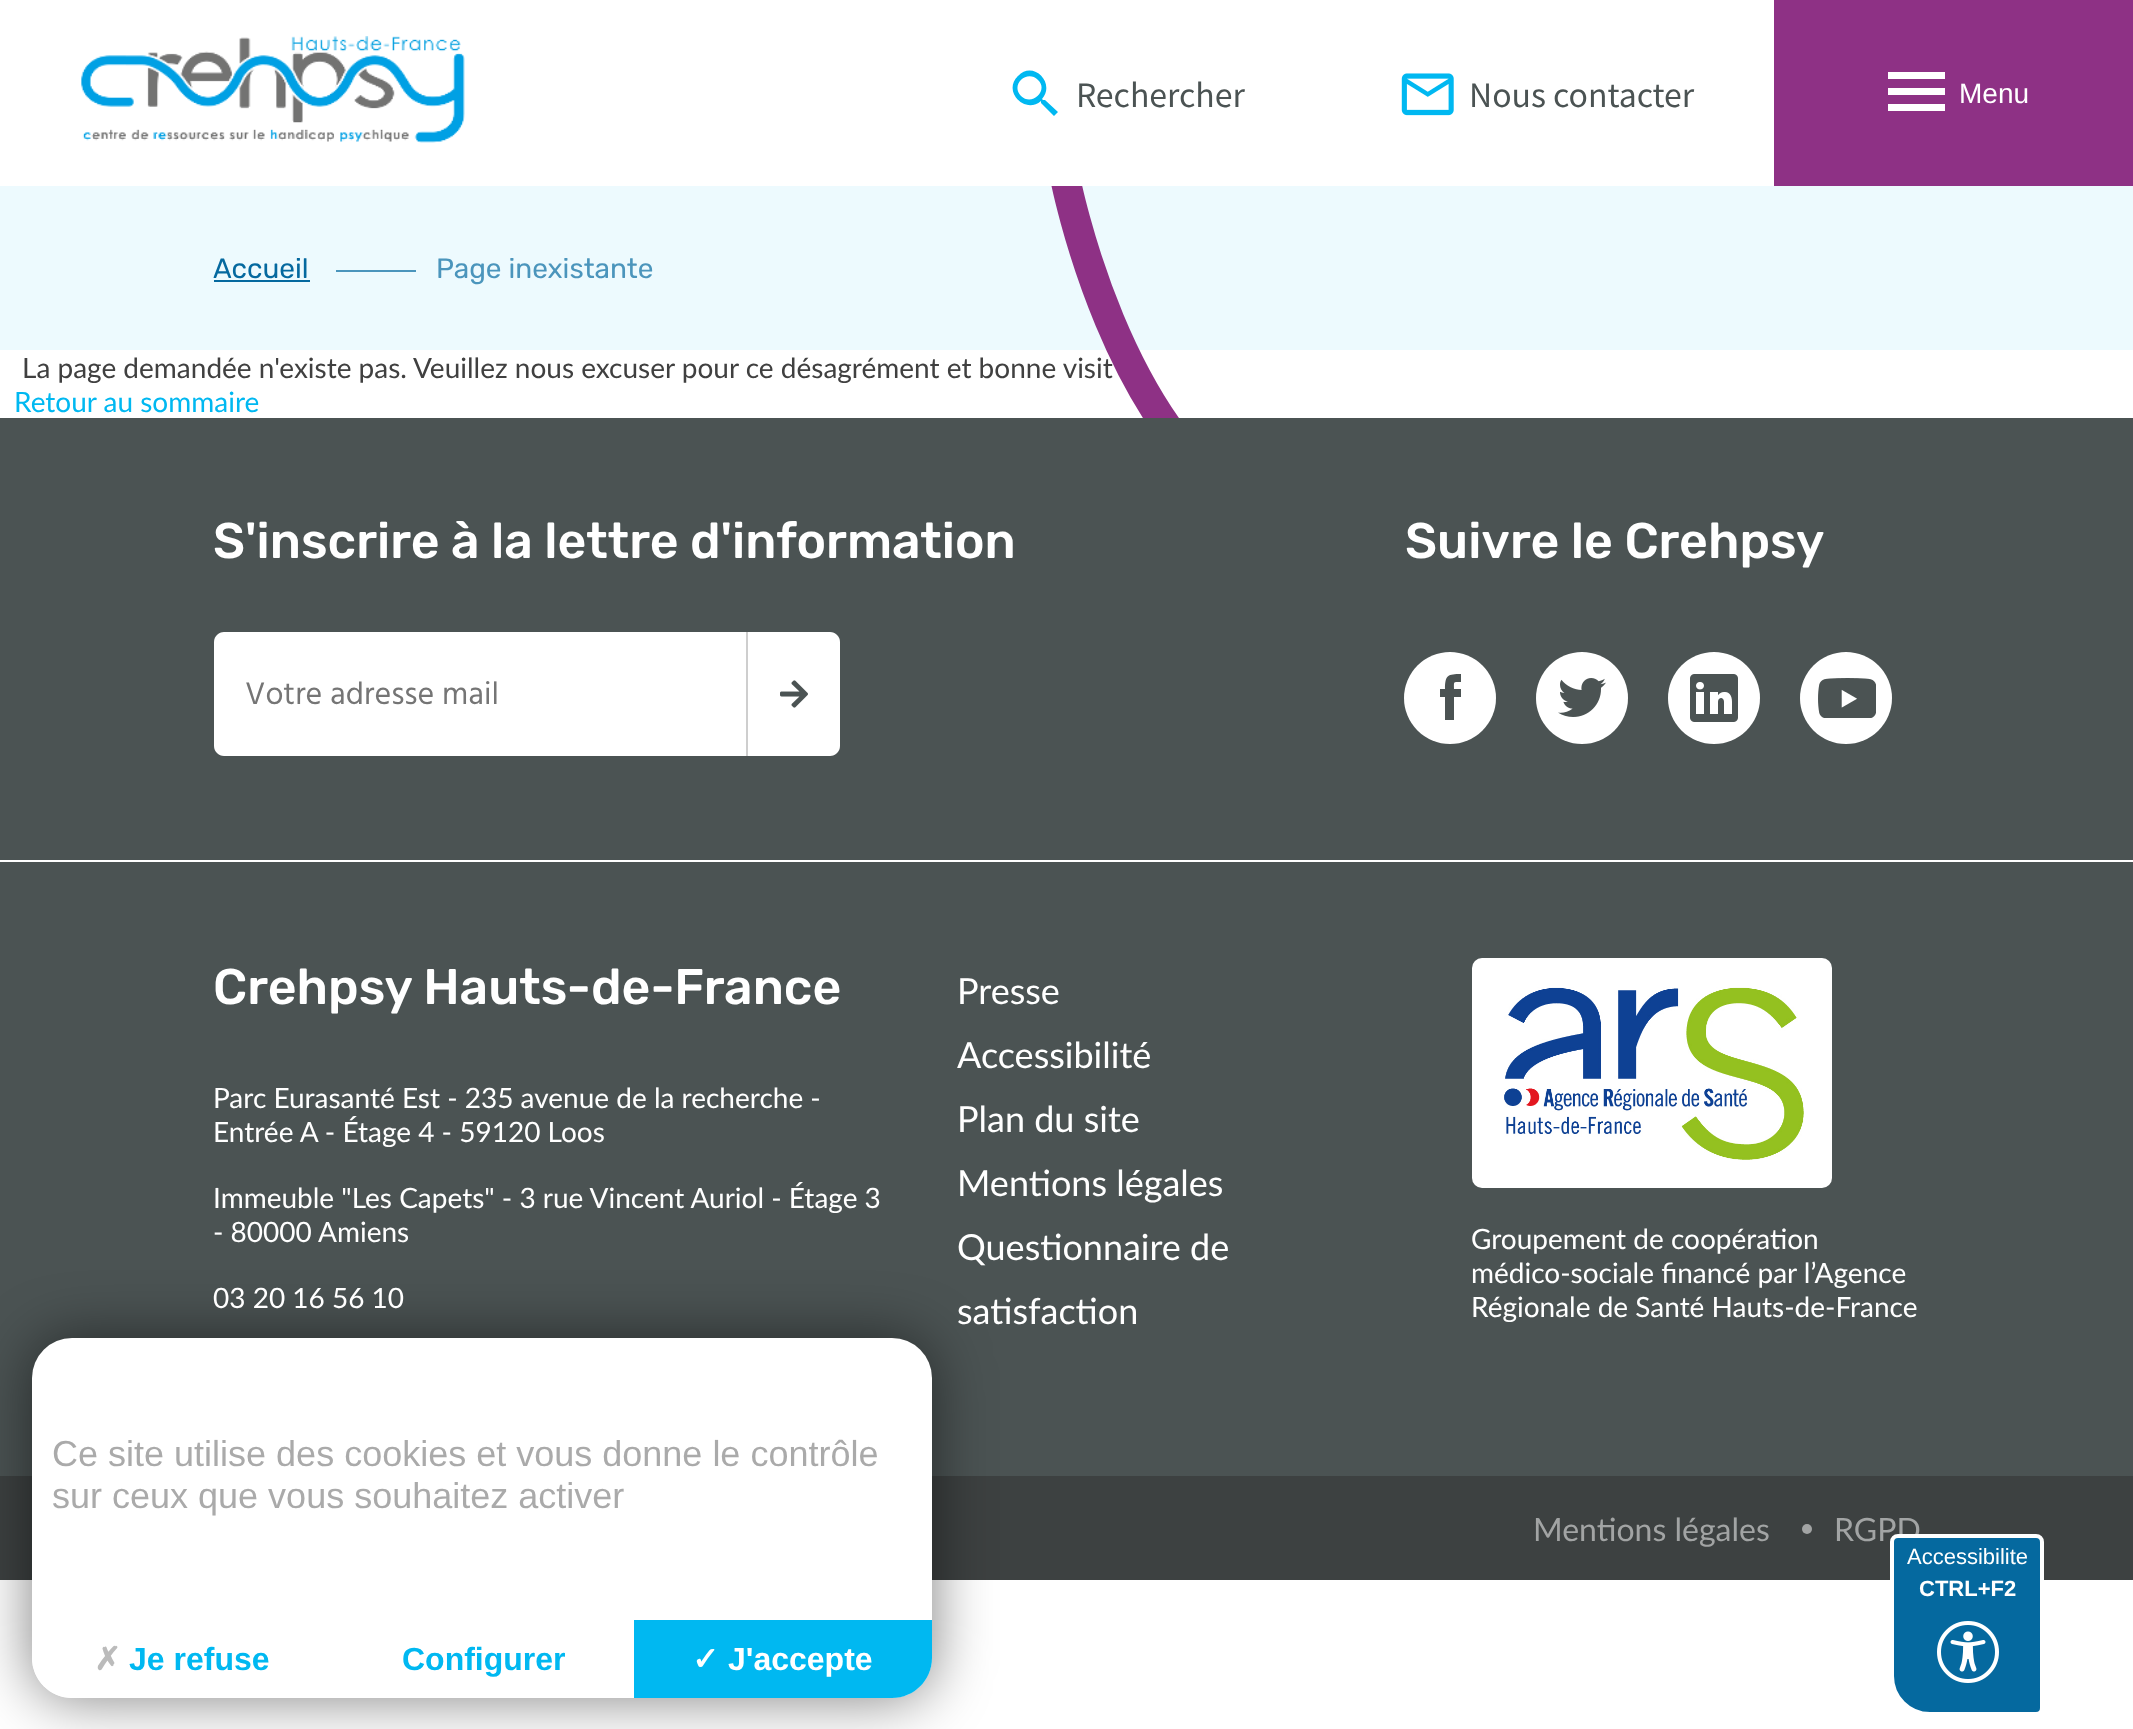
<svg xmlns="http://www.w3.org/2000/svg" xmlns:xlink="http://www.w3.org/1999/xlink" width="2133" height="1729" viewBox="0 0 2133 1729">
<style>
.cls-1{font:100 32px Noto Sans JP;fill:#4b5353}
.cls-2{font:28px Liberation Sans;fill:#ffffff}
.cls-3{font:28px Rubik;fill:#05699f}
.cls-4{font:28px Rubik;fill:#4b95bc}
.cls-5{font:28px Lato;fill:#404040}
.cls-6{font:28px Lato;fill:#00b8f1}
.cls-7{font:500 50px Rubik;fill:#ffffff}
.cls-8{font:32px Hind Madurai;fill:#757575}
.cls-9{font:28px Lato;fill:#ffffff}
.cls-10{font:36px Lato;fill:#ffffff}
.cls-11{font:32px Lato;fill:#a2a4a4}
.cls-12{font:36px Liberation Sans;fill:#aaaaaa}
.cls-13{font:bold 32px DejaVu Sans;fill:#bbbbbb}
.cls-14{font:bold 32px Liberation Sans;fill:#00b8f1}
.cls-15{font:bold 32px DejaVu Sans;fill:#ffffff}
.cls-16{font:bold 32px Liberation Sans;fill:#ffffff}
.cls-17{font:22px Liberation Sans;fill:#ffffff}
.cls-18{font:bold 22px Liberation Sans;fill:#ffffff}
</style>
<defs>
<clipPath id="clip1"><rect x="0" y="186" width="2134" height="232"/></clipPath>
</defs>
<rect width="100%" height="100%" fill="#ffffff"/>
<image xlink:href="image0.png" x="81" y="36" width="384" height="107"/>
<path fill="#00b8f1" d="M1021 96C1032 107 1049 90 1038 80C1027 69 1010 85 1021 96ZM1045 100L1058 112L1054 116L1041 103V101C1025 115 1002 91 1018 76C1033 60 1056 83 1042 99L1043 100Z"/>
<image xlink:href="image1.png" x="1401" y="73" width="53" height="43"/>
<rect fill="#8e3185" x="1774" y="0" width="359" height="186"/>
<path fill="#ffffff" d="M1888 111H1945V104H1888ZM1888 95H1945V88H1888ZM1888 72V79H1945V72Z"/>
<rect fill="#edfafe" x="0" y="186" width="2133" height="164"/>
<rect fill="#05699f" x="214" y="280" width="96" height="2"/>
<rect fill="#4b95bc" x="336" y="270" width="80" height="2"/>
<rect fill="#4b5353" x="0" y="418" width="2133" height="442"/>
<path fill="#ffffff" d="M224 632H746V756H224C218.5 756 214 751.5 214 746V642C214 636.5 218.5 632 224 632Z"/>
<path fill="#ffffff" d="M746 632H830C835.5 632 840 636.5 840 642V746C840 751.5 835.5 756 830 756H746Z"/>
<rect fill="#cecece" x="746" y="632" width="2" height="124"/>
<image xlink:href="image2.png" x="780" y="680" width="28" height="28"/>
<circle fill="#ffffff" cx="1450" cy="698" r="46"/>
<path fill="#4b5353" d="M1461 689H1454C1454 681 1453 682 1461 682V674C1448 674 1445 675 1445 689H1440V697H1445V720H1454V697H1461Z"/>
<circle fill="#ffffff" cx="1582" cy="698" r="46"/>
<image xlink:href="image3.png" x="1558" y="678" width="48" height="39"/>
<circle fill="#ffffff" cx="1714" cy="698" r="46"/>
<image xlink:href="image4.png" x="1690" y="674" width="48" height="48"/>
<circle fill="#ffffff" cx="1846" cy="698" r="46"/>
<image xlink:href="image5.png" x="1818" y="678" width="58" height="40"/>
<rect fill="#4b5353" x="0" y="862" width="2133" height="614"/>
<rect fill="#ffffff" x="1472" y="958" width="360" height="230" rx="10"/>
<image xlink:href="image6.png" x="1504" y="987" width="300" height="173"/>
<rect fill="#3d4141" x="0" y="1476" width="2133" height="104"/>
<circle fill="#a2a4a4" cx="1807" cy="1529" r="5"/>
<rect fill="#000000" fill-opacity="0.5" filter="blur(30px)" x="32" y="1338" width="900" height="360" rx="40"/>
<rect fill="#ffffff" x="32" y="1338" width="900" height="360" rx="40"/>
<path fill="#ffffff" d="M32 1620H332V1698H72C50 1698 32 1680 32 1658Z"/>
<path fill="#00b8f1" d="M632 1620H932V1658C932 1680 914 1698 892 1698H632Z"/>
<rect fill="#ffffff" x="632" y="1620" width="2" height="78"/>
<text class="cls-1" x="1076" y="107">Rechercher</text>
<text class="cls-1" x="1469" y="107">Nous contacter</text>
<text class="cls-2" x="1959" y="103">Menu</text>
<text class="cls-3" x="213" y="278">Accueil</text>
<text class="cls-4" x="436" y="278">Page inexistante</text>
<text class="cls-5" x="22" y="378">La page demandée n'existe pas.</text>
<text class="cls-5" x="413" y="378">Veuillez nous excuser pour ce désagrément et bonne visit</text>
<g clip-path="url(#clip1)">
<path fill="none" stroke="#8e3185" stroke-width="30" d="M1065 177C1065 177 1116 444.5 1268.5 520C1420.5 596 1585 476.5 1734 544C1883 611 1934.5 823 2027.5 957"/>
</g>
<text class="cls-6" x="14" y="412">Retour au sommaire</text>
<text class="cls-7" x="213" y="558">S'inscrire à la lettre d'information</text>
<text class="cls-8" x="245" y="704">Votre adresse mail</text>
<text class="cls-7" x="1405" y="558">Suivre le Crehpsy</text>
<text class="cls-7" x="213" y="1004">Crehpsy Hauts-de-France</text>
<text class="cls-9"><tspan x="213" y="1108">Parc Eurasanté Est - 235 avenue de la recherche -</tspan><tspan x="213" y="1142">Entrée A - Étage 4 - 59120 Loos</tspan></text>
<text class="cls-9"><tspan x="213" y="1208">Immeuble "Les Capets" - 3 rue Vincent Auriol - Étage 3</tspan><tspan x="213" y="1242">- 80000 Amiens</tspan></text>
<text class="cls-9" x="213" y="1308">03 20 16 56 10</text>
<text class="cls-10"><tspan x="957" y="1004">Presse</tspan><tspan x="957" y="1068">Accessibilité</tspan><tspan x="957" y="1132">Plan du site</tspan><tspan x="957" y="1196">Mentions légales</tspan><tspan x="957" y="1260">Questionnaire de</tspan><tspan x="957" y="1324">satisfaction</tspan></text>
<text class="cls-9"><tspan x="1471" y="1249">Groupement de coopération</tspan><tspan x="1471" y="1283">médico-sociale financé par l’Agence</tspan><tspan x="1471" y="1317">Régionale de Santé Hauts-de-France</tspan></text>
<text class="cls-11" x="1533" y="1541">Mentions légales</text>
<text class="cls-11" x="1834" y="1541">RGPD</text>
<text class="cls-12"><tspan x="52" y="1466">Ce site utilise des cookies et vous donne le contrôle</tspan><tspan x="52" y="1508">sur ceux que vous souhaitez activer</tspan></text>
<text class="cls-13" x="94" y="1670">✗</text>
<text class="cls-14" x="129" y="1670">Je refuse</text>
<text class="cls-14" x="402" y="1670">Configurer</text>
<text class="cls-15" x="692" y="1670">✓</text>
<text class="cls-16" x="728" y="1670">J'accepte</text>
<path fill="#05699f" stroke="#ffffff" stroke-width="4" d="M1898 1536H2036C2039.5 1536 2042 1538.5 2042 1542V1708C2042 1711.5 2039.5 1714 2036 1714H1930C1909 1714 1892 1697 1892 1676V1542C1892 1538.5 1894.5 1536 1898 1536Z"/>
<text class="cls-17" x="1907" y="1564">Accessibilite</text>
<text class="cls-18" x="1919" y="1596">CTRL+F2</text>
<image xlink:href="image7.png" x="1937" y="1621" width="62" height="62"/>
</svg>
